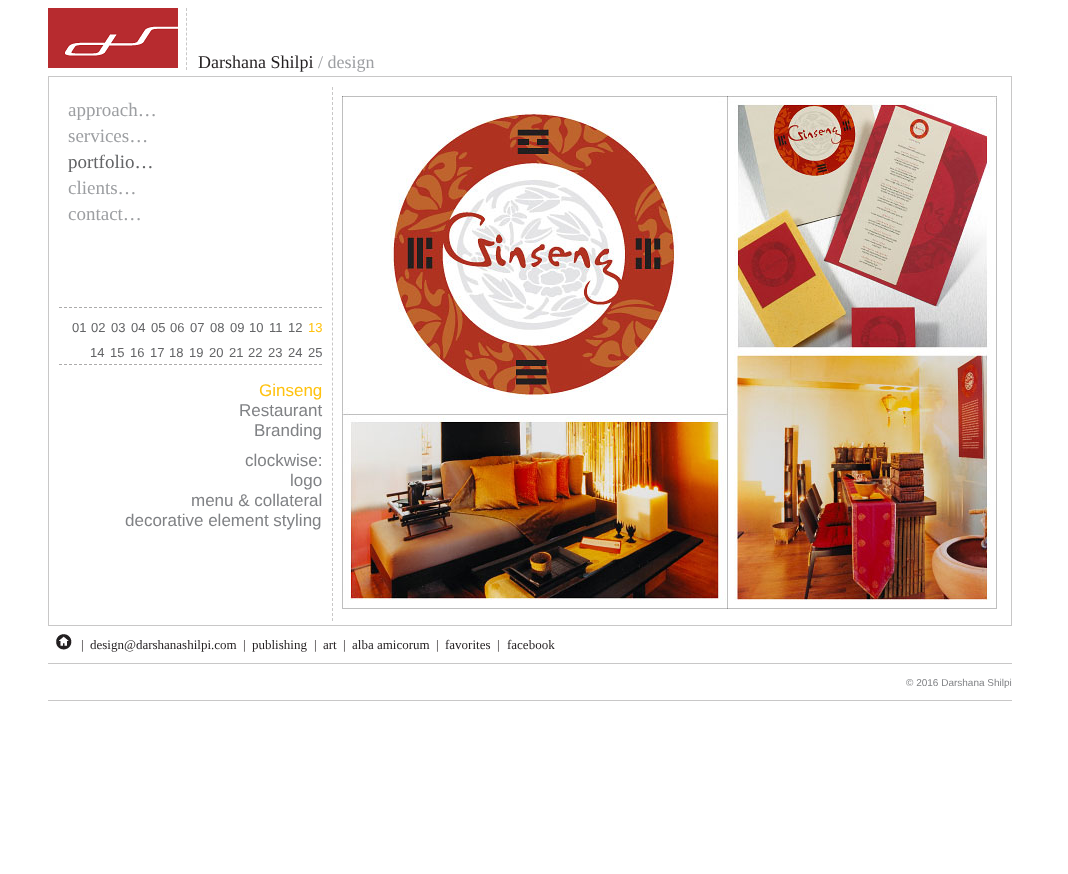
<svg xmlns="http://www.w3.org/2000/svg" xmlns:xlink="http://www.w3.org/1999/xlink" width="1068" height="874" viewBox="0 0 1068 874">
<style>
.cls-1{font:18px Liberation Serif;fill:#231f20}
.cls-2{font:18px Liberation Serif;fill:#9d9fa2}
.cls-3{font:19px Liberation Serif;fill:#9d9fa2}
.cls-4{font:19px Liberation Serif;fill:#636466}
.cls-5{font:13px Liberation Sans;fill:#636466}
.cls-6{font:13px Liberation Sans;fill:#ffc20e}
.cls-7{font:17px Liberation Sans;fill:#ffc20e}
.cls-8{font:17px Liberation Sans;fill:#808285}
.cls-9{font:13px Liberation Serif;fill:#231f20}
.cls-10{font:10px Liberation Sans;fill:#808285}
</style>
<rect width="100%" height="100%" fill="#ffffff"/>
<path fill="none" stroke="#c8c7c7" stroke-dasharray="3 1.92" d="M186.5 8V70"/>
<image xlink:href="image0.png" x="48" y="8" width="130" height="60"/>
<rect fill="none" stroke="#c8c7c7" x="48.5" y="76.5" width="963" height="549"/>
<path fill="none" stroke="#c8c7c7" stroke-dasharray="3 2.01" d="M332.5 87V621"/>
<path fill="none" stroke="#acabab" stroke-dasharray="3 2" d="M59 307.5H322"/>
<path fill="none" stroke="#acabab" stroke-dasharray="3 2" d="M59 364.5H322"/>
<image xlink:href="image1.png" x="342" y="96" width="655" height="513"/>
<rect fill="#c8c7c7" x="48" y="663" width="964" height="1"/>
<image xlink:href="image2.png" x="55" y="634" width="17" height="16"/>
<rect fill="#c8c7c7" x="48" y="700" width="964" height="1"/>
<text class="cls-1" x="198" y="68">Darshana Shilpi</text>
<text class="cls-2" x="318" y="68">/ design</text>
<text class="cls-3"><tspan x="68" y="116">approach…</tspan><tspan x="68" y="142">services…</tspan></text>
<text class="cls-4" x="68" y="168">portfolio…</text>
<text class="cls-3"><tspan x="68" y="194">clients…</tspan><tspan x="68" y="220">contact…</tspan></text>
<text class="cls-5" x="72" y="332">01</text>
<text class="cls-5" x="91" y="332">02</text>
<text class="cls-5" x="111" y="332">03</text>
<text class="cls-5" x="131" y="332">04</text>
<text class="cls-5" x="151" y="332">05</text>
<text class="cls-5" x="170" y="332">06</text>
<text class="cls-5" x="190" y="332">07</text>
<text class="cls-5" x="210" y="332">08</text>
<text class="cls-5" x="230" y="332">09</text>
<text class="cls-5" x="249" y="332">10</text>
<text class="cls-5" x="269" y="332">11</text>
<text class="cls-5" x="288" y="332">12</text>
<text class="cls-6" x="308" y="332">13</text>
<text class="cls-5" x="90" y="357">14</text>
<text class="cls-5" x="110" y="357">15</text>
<text class="cls-5" x="130" y="357">16</text>
<text class="cls-5" x="150" y="357">17</text>
<text class="cls-5" x="169" y="357">18</text>
<text class="cls-5" x="189" y="357">19</text>
<text class="cls-5" x="209" y="357">20</text>
<text class="cls-5" x="229" y="357">21</text>
<text class="cls-5" x="248" y="357">22</text>
<text class="cls-5" x="268" y="357">23</text>
<text class="cls-5" x="288" y="357">24</text>
<text class="cls-5" x="308" y="357">25</text>
<text class="cls-7" x="259" y="396">Ginseng</text>
<text class="cls-8" x="239" y="416">Restaurant</text>
<text class="cls-8" x="254" y="436">Branding</text>
<text class="cls-8" x="245" y="466">clockwise:</text>
<text class="cls-8" x="290" y="486">logo</text>
<text class="cls-8" x="191" y="506">menu &amp; collateral</text>
<text class="cls-8" x="125" y="526">decorative element styling</text>
<text class="cls-9" x="81" y="649">|</text>
<text class="cls-9" x="90" y="649">design@darshanashilpi.com</text>
<text class="cls-9" x="243" y="649">|</text>
<text class="cls-9" x="252" y="649">publishing</text>
<text class="cls-9" x="314" y="649">|</text>
<text class="cls-9" x="323" y="649">art</text>
<text class="cls-9" x="343" y="649">|</text>
<text class="cls-9" x="352" y="649">alba amicorum</text>
<text class="cls-9" x="436" y="649">|</text>
<text class="cls-9" x="445" y="649">favorites</text>
<text class="cls-9" x="497" y="649">|</text>
<text class="cls-9" x="507" y="649">facebook</text>
<text class="cls-10" x="906" y="686">© 2016 Darshana Shilpi</text>
</svg>
